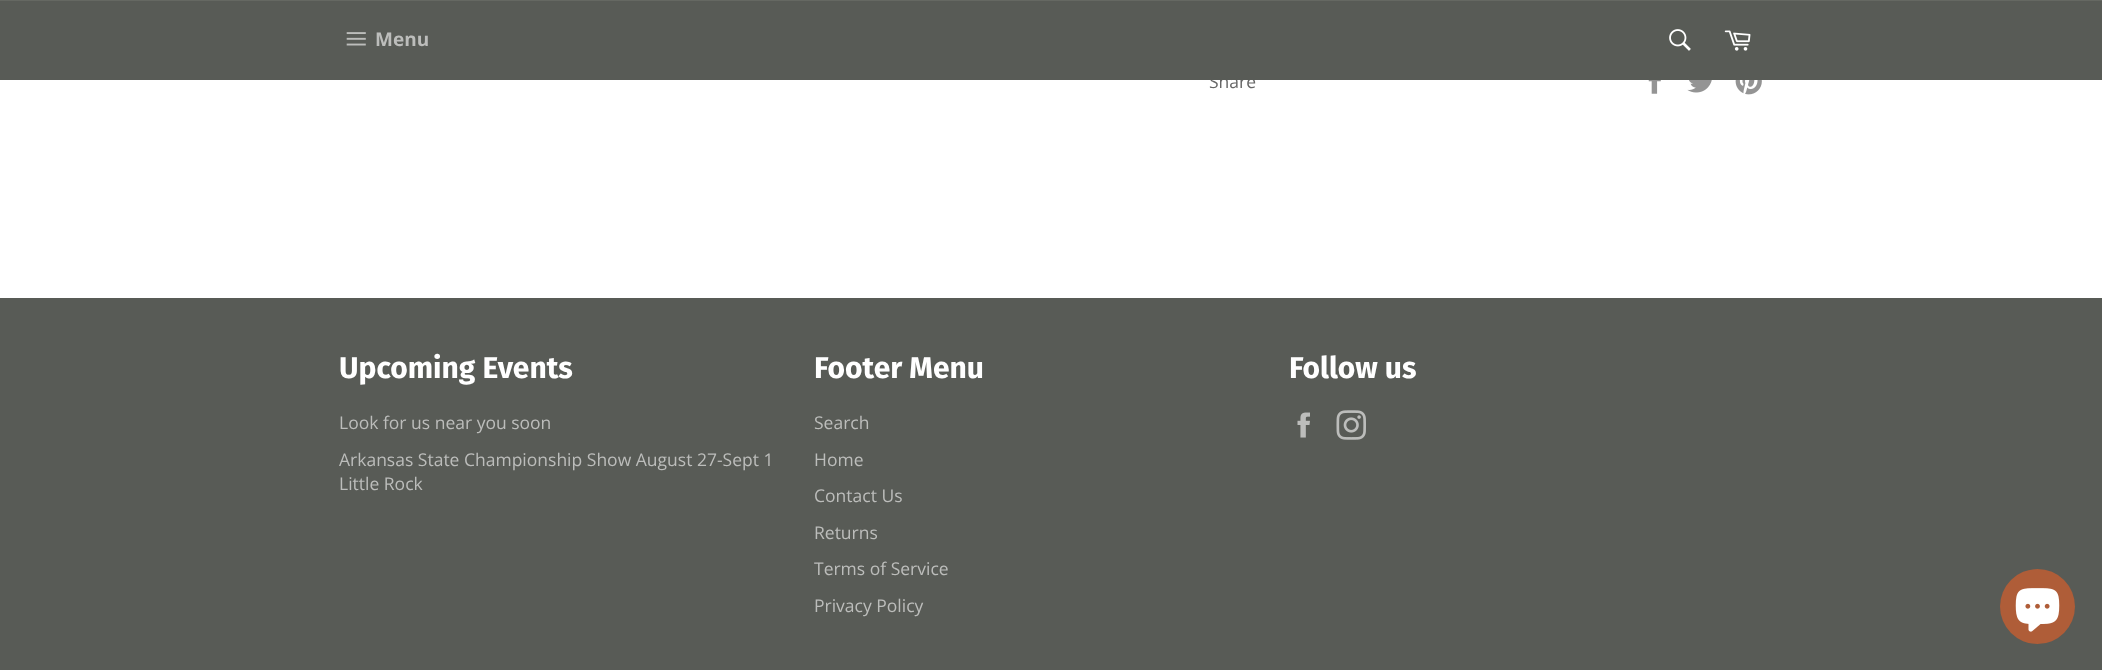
<svg xmlns="http://www.w3.org/2000/svg" xmlns:xlink="http://www.w3.org/1999/xlink" width="2102" height="670" viewBox="0 0 2102 670">
<style>
.cls-1{font:17.5px Open Sans;fill:#666666}
.cls-2{font:bold 19px Open Sans;fill:#bcbdbb}
.cls-3{font:bold 30px Fira Sans;fill:#ffffff}
.cls-4{font:17.5px Open Sans;fill:#bcbdbb}
</style>
<rect width="100%" height="100%" fill="#ffffff"/>
<rect fill="#656862" x="0" y="0" width="2102" height="1"/>
<image xlink:href="image3.png" x="1648" y="80" width="13" height="14"/>
<image xlink:href="image4.png" x="1687" y="80" width="25" height="13"/>
<image xlink:href="image5.png" x="1735" y="80" width="27" height="15"/>
<rect fill="#585b56" x="0" y="298" width="2102" height="372"/>
<image xlink:href="image6.png" x="1297" y="412" width="13" height="26"/>
<image xlink:href="image7.png" x="1336" y="410" width="30" height="30"/>
<circle fill="#af5d38" cx="2037.5" cy="606.5" r="37.5"/>
<image xlink:href="image8.png" x="2015" y="588" width="45" height="44"/>
<text class="cls-1" x="1209" y="88">Share</text>
<rect fill="#585b56" x="0" y="1" width="2102" height="79"/>
<image xlink:href="image1.png" x="1669" y="29" width="22" height="22"/>
<image xlink:href="image2.png" x="1724" y="30" width="27" height="21"/>
<image xlink:href="image0.png" x="346" y="32" width="20" height="14"/>
<text class="cls-2" x="375" y="46">Menu</text>
<text class="cls-3" x="339" y="378">Upcoming Events</text>
<text class="cls-4" x="339" y="429">Look for us near you soon</text>
<text class="cls-4"><tspan x="339" y="466">Arkansas State Championship Show August 27-Sept 1</tspan><tspan x="339" y="490">Little Rock</tspan></text>
<text class="cls-3" x="814" y="378">Footer Menu</text>
<text class="cls-4" x="814" y="429">Search</text>
<text class="cls-4" x="814" y="466">Home</text>
<text class="cls-4" x="814" y="502">Contact Us</text>
<text class="cls-4" x="814" y="539">Returns</text>
<text class="cls-4" x="814" y="575">Terms of Service</text>
<text class="cls-4" x="814" y="612">Privacy Policy</text>
<text class="cls-3" x="1289" y="378">Follow us</text>
</svg>
